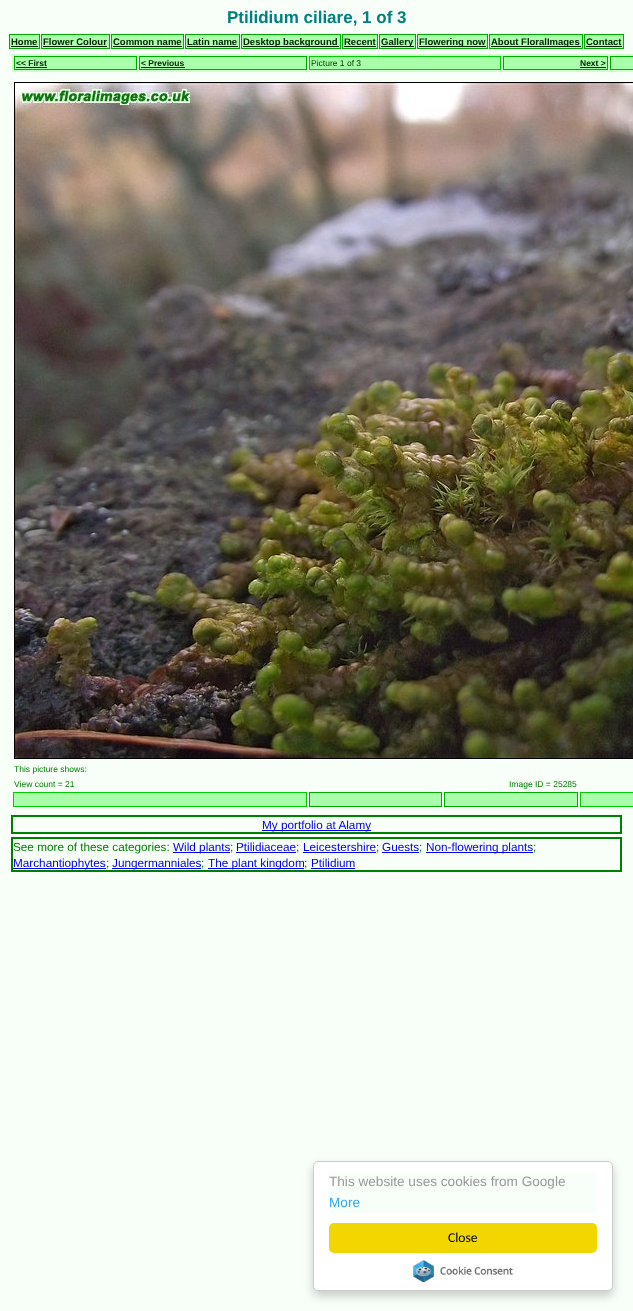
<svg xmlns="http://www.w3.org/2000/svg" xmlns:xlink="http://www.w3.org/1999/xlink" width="633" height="1311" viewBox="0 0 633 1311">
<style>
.cls-1{font:bold 17px Liberation Sans;fill:#008080}
.cls-2{font:bold 9.5px Liberation Sans;fill:#002000}
.cls-3{font:bold 8.5px Liberation Sans;fill:#002000}
.cls-4{font:8.5px Liberation Sans;fill:#004000}
.cls-5{font:8.5px Liberation Sans;fill:#008000}
.cls-6{font:11.75px Liberation Sans;fill:#0000ee}
.cls-7{font:11.75px Liberation Sans;fill:#008000}
.cls-8{font:13.6px Liberation Sans;fill:#999999}
.cls-9{font:13.6px Liberation Sans;fill:#31a8f0}
.cls-10{font:13.6px Carlito;fill:#000000}
</style>
<rect width="100%" height="100%" fill="#f8fff8"/>
<rect fill="#aaffaa" stroke="#00aa00" x="9.5" y="34.5" width="30" height="14"/>
<rect fill="#002000" x="11" y="46" width="27" height="1"/>
<rect fill="#aaffaa" stroke="#00aa00" x="41.5" y="34.5" width="68" height="14"/>
<rect fill="#002000" x="43" y="46" width="64" height="1"/>
<rect fill="#aaffaa" stroke="#00aa00" x="111.5" y="34.5" width="72" height="14"/>
<rect fill="#002000" x="113" y="46" width="69" height="1"/>
<rect fill="#aaffaa" stroke="#00aa00" x="185.5" y="34.5" width="54" height="14"/>
<rect fill="#002000" x="187" y="46" width="51" height="1"/>
<rect fill="#aaffaa" stroke="#00aa00" x="241.5" y="34.5" width="99" height="14"/>
<rect fill="#002000" x="243" y="46" width="96" height="1"/>
<rect fill="#aaffaa" stroke="#00aa00" x="342.5" y="34.5" width="35" height="14"/>
<rect fill="#002000" x="344" y="46" width="32" height="1"/>
<rect fill="#aaffaa" stroke="#00aa00" x="379.5" y="34.5" width="36" height="14"/>
<rect fill="#002000" x="381" y="46" width="33" height="1"/>
<rect fill="#aaffaa" stroke="#00aa00" x="417.5" y="34.5" width="70" height="14"/>
<rect fill="#002000" x="419" y="46" width="67" height="1"/>
<rect fill="#aaffaa" stroke="#00aa00" x="489.5" y="34.5" width="93" height="14"/>
<rect fill="#002000" x="491" y="46" width="90" height="1"/>
<rect fill="#aaffaa" stroke="#00aa00" x="584.5" y="34.5" width="39" height="14"/>
<rect fill="#002000" x="586" y="46" width="36" height="1"/>
<rect fill="#ccffcc" x="12" y="54" width="621" height="18"/>
<rect fill="#aaffaa" stroke="#00aa00" x="14.5" y="56.5" width="122" height="13"/>
<rect fill="#002000" x="16" y="67" width="31" height="1"/>
<rect fill="#aaffaa" stroke="#00aa00" x="139.5" y="56.5" width="167" height="13"/>
<rect fill="#002000" x="141" y="67" width="44" height="1"/>
<rect fill="#aaffaa" stroke="#00cc00" x="309.5" y="56.5" width="191" height="13"/>
<rect fill="#aaffaa" stroke="#00aa00" x="503.5" y="56.5" width="104" height="13"/>
<rect fill="#002000" x="580" y="67" width="26" height="1"/>
<rect fill="#aaffaa" stroke="#00aa00" x="610.5" y="56.5" width="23" height="13"/>
<rect fill="none" stroke="#000000" x="14.5" y="82.5" width="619" height="676"/>
<image xlink:href="image0.png" x="15" y="83" width="618" height="675"/>
<rect fill="#aaffaa" stroke="#00cc00" x="13.5" y="792.5" width="293" height="14"/>
<rect fill="#aaffaa" stroke="#00aa00" x="309.5" y="792.5" width="132" height="14"/>
<rect fill="#aaffaa" stroke="#00aa00" x="444.5" y="792.5" width="133" height="14"/>
<rect fill="#aaffaa" stroke="#00cc00" x="580.5" y="792.5" width="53" height="14"/>
<rect fill="none" stroke="#008000" stroke-width="2" x="12" y="816" width="609" height="17"/>
<rect fill="#0000ee" x="262" y="830" width="109" height="1"/>
<rect fill="none" stroke="#008000" stroke-width="2" x="12" y="838" width="609" height="33"/>
<rect fill="#0000ee" x="173" y="852" width="57" height="1"/>
<rect fill="#0000ee" x="236" y="852" width="60" height="1"/>
<rect fill="#0000ee" x="303" y="852" width="73" height="1"/>
<rect fill="#0000ee" x="382" y="852" width="37" height="1"/>
<rect fill="#0000ee" x="426" y="852" width="107" height="1"/>
<rect fill="#0000ee" x="13" y="868" width="93" height="1"/>
<rect fill="#0000ee" x="112" y="868" width="89" height="1"/>
<rect fill="#0000ee" x="208" y="868" width="96" height="1"/>
<rect fill="#0000ee" x="311" y="868" width="44" height="1"/>
<rect fill="#000000" fill-opacity="0.2" filter="blur(5px)" x="313" y="1166" width="300" height="130" rx="5"/>
<rect fill="#ffffff" stroke="#cccccc" x="313.5" y="1161.5" width="299" height="129" rx="4.5"/>
<rect fill="#f8fff8" x="329" y="1172" width="268" height="41"/>
<rect fill="#f1d600" x="329" y="1223" width="268" height="30" rx="5"/>
<image xlink:href="image1.png" x="413" y="1260" width="100" height="22"/>
<text class="cls-1" x="227" y="23">Ptilidium ciliare, 1 of 3</text>
<text class="cls-2" x="11" y="45">Home</text>
<text class="cls-2" x="43" y="45">Flower Colour</text>
<text class="cls-2" x="113" y="45">Common name</text>
<text class="cls-2" x="187" y="45">Latin name</text>
<text class="cls-2" x="243" y="45">Desktop background</text>
<text class="cls-2" x="344" y="45">Recent</text>
<text class="cls-2" x="381" y="45">Gallery</text>
<text class="cls-2" x="419" y="45">Flowering now</text>
<text class="cls-2" x="491" y="45">About FloralImages</text>
<text class="cls-2" x="586" y="45">Contact</text>
<text class="cls-3" x="16" y="66">&lt;&lt; First</text>
<text class="cls-3" x="141" y="66">&lt; Previous</text>
<text class="cls-4" x="311" y="66">Picture 1 of 3</text>
<text class="cls-3" x="580" y="66">Next &gt;</text>
<text class="cls-5"><tspan x="14" y="772">This picture shows:</tspan><tspan x="14" y="787">View count = 21</tspan></text>
<text class="cls-5" x="509" y="787">Image ID = 25285</text>
<text class="cls-6" x="262" y="829">My portfolio at Alamy</text>
<text class="cls-7" x="13" y="851">See more of these categories:</text>
<text class="cls-6" x="173" y="851">Wild plants</text>
<text class="cls-7" x="230" y="851">;</text>
<text class="cls-6" x="236" y="851">Ptilidiaceae</text>
<text class="cls-7" x="296" y="851">;</text>
<text class="cls-6" x="303" y="851">Leicestershire</text>
<text class="cls-7" x="376" y="851">;</text>
<text class="cls-6" x="382" y="851">Guests</text>
<text class="cls-7" x="419" y="851">;</text>
<text class="cls-6" x="426" y="851">Non-flowering plants</text>
<text class="cls-7" x="533" y="851">;</text>
<text class="cls-6" x="13" y="867">Marchantiophytes</text>
<text class="cls-7" x="106" y="867">;</text>
<text class="cls-6" x="112" y="867">Jungermanniales</text>
<text class="cls-7" x="201" y="867">;</text>
<text class="cls-6" x="208" y="867">The plant kingdom</text>
<text class="cls-7" x="304" y="867">;</text>
<text class="cls-6" x="311" y="867">Ptilidium</text>
<text class="cls-8" x="329" y="1186">This website uses cookies from Google</text>
<text class="cls-9" x="329" y="1207">More</text>
<text class="cls-10" x="448" y="1242">Close</text>
</svg>
